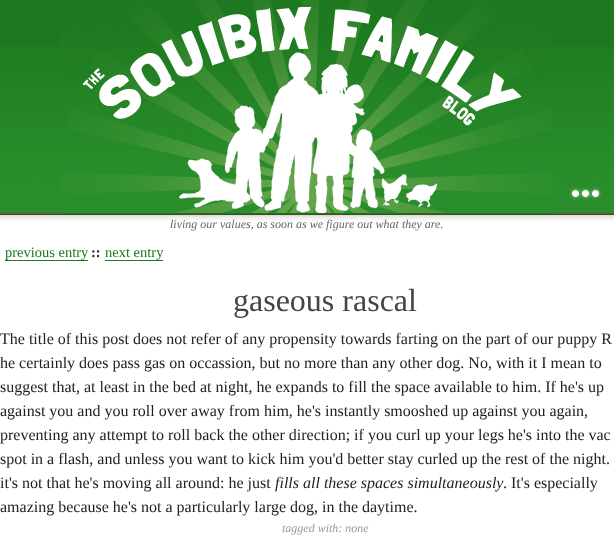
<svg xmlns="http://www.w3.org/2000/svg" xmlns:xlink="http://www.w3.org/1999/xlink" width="614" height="539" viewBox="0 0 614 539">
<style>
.cls-1{font:italic 12px Liberation Serif;fill:#666666}
.cls-2{font:14.5px Liberation Serif;fill:#1d7820}
.cls-3{font:bold 14.5px Liberation Serif;fill:#222222}
.cls-4{font:32px Liberation Serif;fill:#444444}
.cls-5{font:16px Liberation Serif;fill:#222222}
.cls-6{font:italic 16px Liberation Serif;fill:#222222}
.cls-7{font:italic 12px Liberation Serif;fill:#999999}
</style>
<rect width="100%" height="100%" fill="#ffffff"/>
<image xlink:href="image1.png" x="0" y="46" width="614" height="169"/>
<image xlink:href="image0.png" x="569" y="187" width="33" height="13"/>
<rect fill="#1d7820" x="0" y="0" width="614" height="46"/>
<image xlink:href="image2.png" x="61" y="0" width="492" height="213"/>
<rect fill="#1d7820" x="61" y="213" width="493" height="1"/>
<image xlink:href="image3.png" x="0" y="215" width="614" height="6"/>
<rect fill="#1d7820" x="5" y="260" width="83" height="1"/>
<rect fill="#1d7820" x="105" y="260" width="58" height="1"/>
<text class="cls-1" x="170" y="228">living our values, as soon as we figure out what they are.</text>
<text class="cls-2" x="5" y="257">previous entry</text>
<text class="cls-3" x="91" y="257">::</text>
<text class="cls-2" x="105" y="257">next entry</text>
<text class="cls-4" x="233" y="311">gaseous rascal</text>
<text class="cls-5"><tspan x="0" y="344">The title of this post does not refer of any propensity towards farting on the part of our puppy R</tspan><tspan x="0" y="368">he certainly does pass gas on occassion, but no more than any other dog. No, with it I mean to</tspan><tspan x="0" y="392">suggest that, at least in the bed at night, he expands to fill the space available to him. If he's up</tspan><tspan x="0" y="416">against you and you roll over away from him, he's instantly smooshed up against you again,</tspan><tspan x="0" y="440">preventing any attempt to roll back the other direction; if you curl up your legs he's into the vac</tspan><tspan x="0" y="464">spot in a flash, and unless you want to kick him you'd better stay curled up the rest of the night.</tspan><tspan x="0" y="488">it's not that he's moving all around: he just</tspan></text>
<text class="cls-6" x="275" y="488">fills all these spaces simultaneously</text>
<text class="cls-5" x="503" y="488">. It's especially</text>
<text class="cls-5" x="0" y="512">amazing because he's not a particularly large dog, in the daytime.</text>
<text class="cls-7" x="282" y="532">tagged with: none</text>
</svg>
